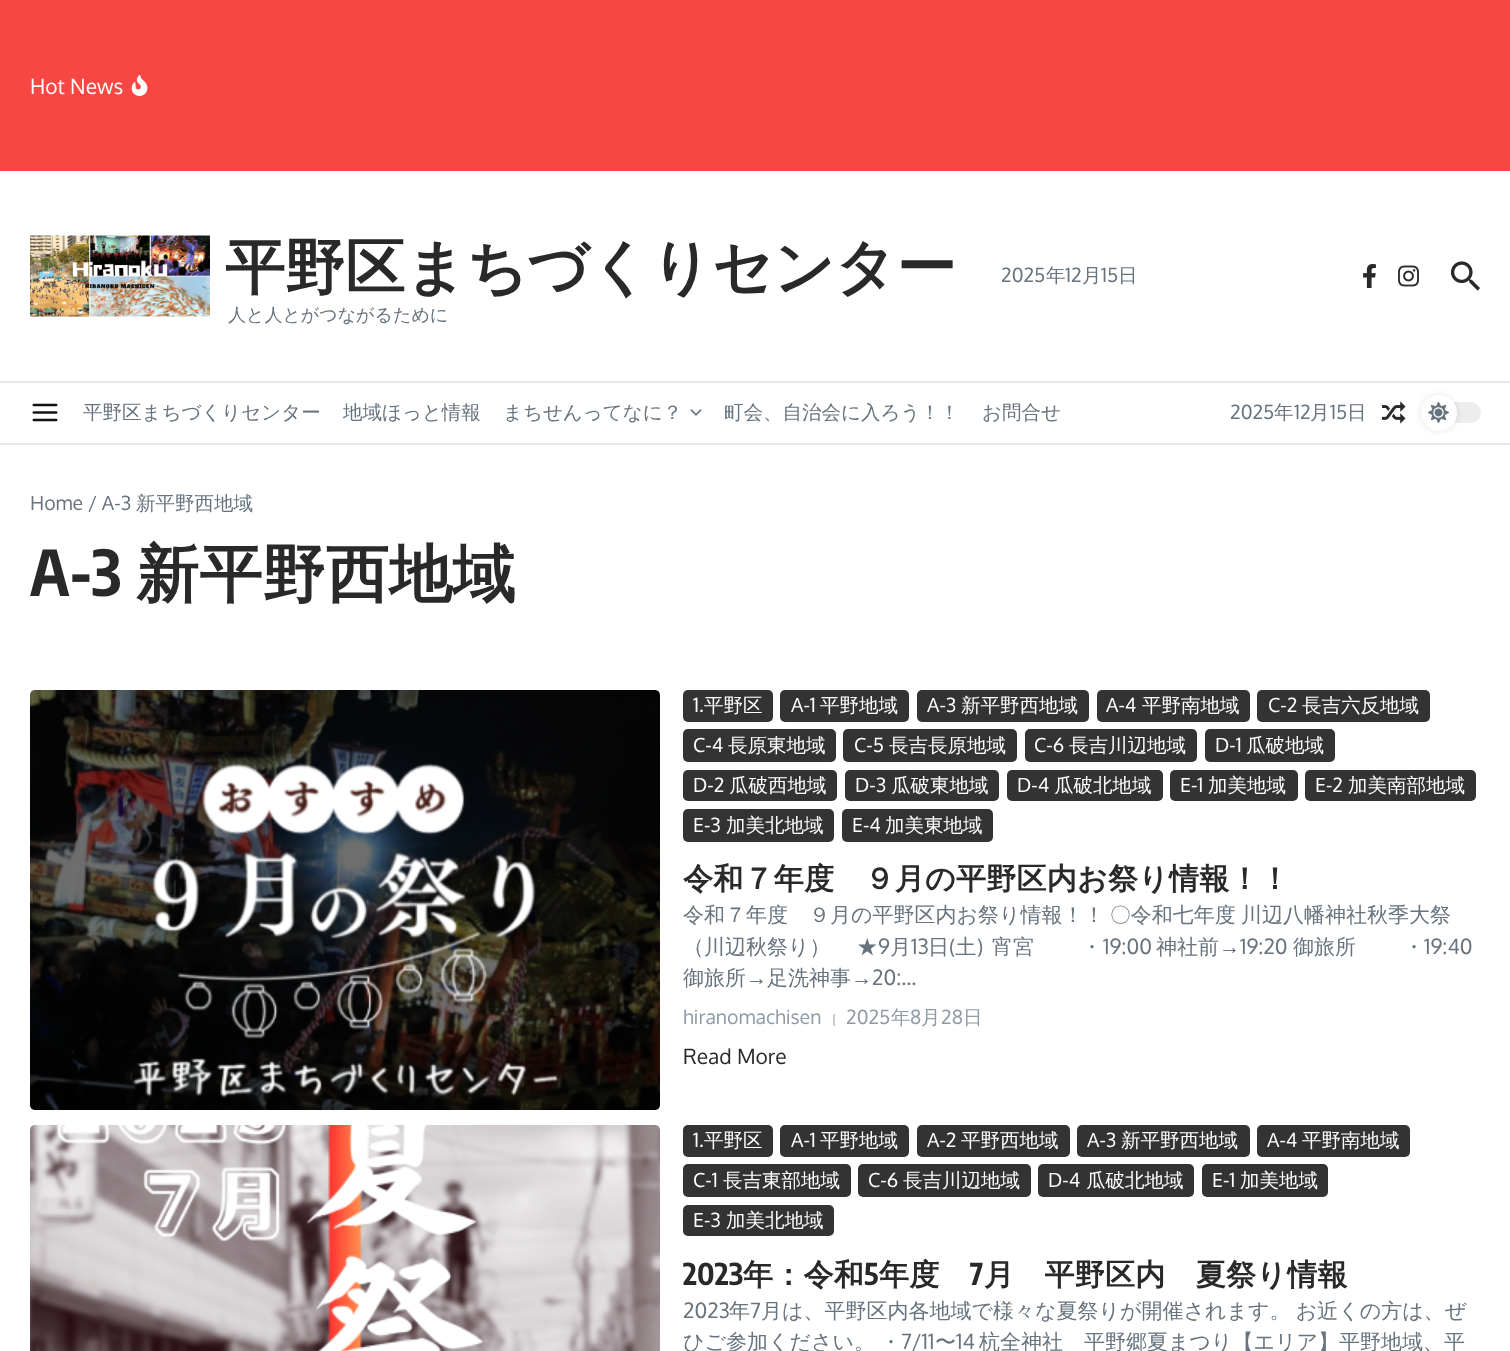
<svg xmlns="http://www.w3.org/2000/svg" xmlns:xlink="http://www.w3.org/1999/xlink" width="1510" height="1351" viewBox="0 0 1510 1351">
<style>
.cls-1{font:21px Oxygen;fill:#ffffff}
.cls-2{font:bold 60px WenQuanYi Zen Hei;fill:#292929}
.cls-3{font:500 18px WenQuanYi Zen Hei;fill:#67737e}
.cls-4{font:19.5px Oxygen;fill:#67737e}
.cls-5{font:500 19.5px WenQuanYi Zen Hei;fill:#67737e}
.cls-6{font:bold 63px Encode Sans Condensed;letter-spacing:0.25px;fill:#292929}
.cls-7{font:bold 63px WenQuanYi Zen Hei;letter-spacing:0.25px;fill:#292929}
.cls-8{font:19.5px Oxygen;fill:#ffffff}
.cls-9{font:500 19.5px WenQuanYi Zen Hei;fill:#ffffff}
.cls-10{font:bold 30px WenQuanYi Zen Hei;letter-spacing:0.25px;fill:#292929}
.cls-11{font:500 21px WenQuanYi Zen Hei;fill:#67737e}
.cls-12{font:21px Oxygen;fill:#67737e}
.cls-13{font:21px Liberation Serif;fill:#67737e}
.cls-14{font:19.5px Oxygen;fill:#8e9ba7}
.cls-15{font:500 19.5px WenQuanYi Zen Hei;fill:#8e9ba7}
.cls-16{font:21px Oxygen;fill:#292929}
.cls-17{font:bold 30px Encode Sans Condensed;letter-spacing:0.25px;fill:#292929}
</style>
<rect width="100%" height="100%" fill="#ffffff"/>
<rect fill="#f84643" x="0" y="0" width="1510" height="171"/>
<image xlink:href="image0.png" x="131" y="75" width="17" height="21"/>
<rect fill="#e8e8e8" x="0" y="381" width="1510" height="2"/>
<image xlink:href="image1.png" x="30" y="235" width="180" height="82"/>
<image xlink:href="image2.png" x="1363" y="264" width="13" height="24"/>
<image xlink:href="image3.png" x="1398" y="265" width="21" height="22"/>
<image xlink:href="image4.png" x="1451" y="261" width="29" height="30"/>
<rect fill="#e8e8e8" x="0" y="443" width="1510" height="2"/>
<image xlink:href="image5.png" x="32" y="403" width="26" height="19"/>
<image xlink:href="image6.png" x="690" y="409" width="12" height="7"/>
<image xlink:href="image7.png" x="1382" y="401" width="24" height="23"/>
<rect fill="#ededed" x="1421" y="402" width="60" height="21" rx="10.5"/>
<rect fill="#000000" fill-opacity="0.1" filter="blur(3px)" x="1421" y="395" width="36" height="36" rx="18"/>
<circle fill="#ffffff" cx="1439" cy="413" r="18"/>
<image xlink:href="image8.png" x="1428" y="402" width="21" height="21"/>
<image xlink:href="image9.png" x="30" y="690" width="630" height="420"/>
<rect fill="#333333" x="683" y="690" width="90" height="32" rx="5"/>
<rect fill="#333333" x="780" y="690" width="129" height="32" rx="5"/>
<rect fill="#333333" x="917" y="690" width="172" height="32" rx="5"/>
<rect fill="#333333" x="1097" y="690" width="153" height="32" rx="5"/>
<rect fill="#333333" x="1257" y="690" width="173" height="32" rx="5"/>
<rect fill="#333333" x="683" y="729" width="153" height="33" rx="5"/>
<rect fill="#333333" x="843" y="729" width="174" height="33" rx="5"/>
<rect fill="#333333" x="1025" y="729" width="172" height="33" rx="5"/>
<rect fill="#333333" x="1205" y="729" width="130" height="33" rx="5"/>
<rect fill="#333333" x="683" y="770" width="154" height="31" rx="5"/>
<rect fill="#333333" x="845" y="770" width="154" height="31" rx="5"/>
<rect fill="#333333" x="1007" y="770" width="156" height="31" rx="5"/>
<rect fill="#333333" x="1170" y="770" width="128" height="31" rx="5"/>
<rect fill="#333333" x="1305" y="770" width="171" height="31" rx="5"/>
<rect fill="#333333" x="683" y="809" width="151" height="33" rx="5"/>
<rect fill="#333333" x="842" y="809" width="151" height="33" rx="5"/>
<rect fill="#c7cdd3" x="833" y="1014" width="2" height="12"/>
<image xlink:href="image10.png" x="30" y="1125" width="630" height="226"/>
<rect fill="#333333" x="683" y="1125" width="90" height="32" rx="5"/>
<rect fill="#333333" x="780" y="1125" width="129" height="32" rx="5"/>
<rect fill="#333333" x="917" y="1125" width="153" height="32" rx="5"/>
<rect fill="#333333" x="1077" y="1125" width="173" height="32" rx="5"/>
<rect fill="#333333" x="1257" y="1125" width="153" height="32" rx="5"/>
<rect fill="#333333" x="683" y="1164" width="168" height="33" rx="5"/>
<rect fill="#333333" x="858" y="1164" width="173" height="33" rx="5"/>
<rect fill="#333333" x="1038" y="1164" width="156" height="33" rx="5"/>
<rect fill="#333333" x="1202" y="1164" width="126" height="33" rx="5"/>
<rect fill="#333333" x="683" y="1205" width="151" height="31" rx="5"/>
<text class="cls-1" x="30" y="94">Hot News</text>
<text class="cls-2" x="225" y="288">平野区まちづくりセンター</text>
<text class="cls-3" x="228" y="321">人と人とがつながるために</text>
<text class="cls-4" x="1001" y="282">2025</text>
<text class="cls-5" x="1046" y="282">年</text>
<text class="cls-4" x="1065" y="282">12</text>
<text class="cls-5" x="1082" y="282">月</text>
<text class="cls-4" x="1101" y="282">15</text>
<text class="cls-5" x="1118" y="282">日</text>
<text class="cls-5" x="83" y="419">平野区まちづくりセンター</text>
<text class="cls-5" x="343" y="419">地域ほっと情報</text>
<text class="cls-5" x="503" y="419">まちせんってなに？</text>
<text class="cls-5" x="724" y="419">町会、自治会に入ろう！！</text>
<text class="cls-5" x="982" y="419">お問合せ</text>
<text class="cls-4" x="1230" y="419">2025</text>
<text class="cls-5" x="1274" y="419">年</text>
<text class="cls-4" x="1294" y="419">12</text>
<text class="cls-5" x="1310" y="419">月</text>
<text class="cls-4" x="1330" y="419">15</text>
<text class="cls-5" x="1347" y="419">日</text>
<text class="cls-4" x="30" y="510">Home / A-3</text>
<text class="cls-5" x="136" y="510">新平野西地域</text>
<text class="cls-6" x="30" y="596">A-3</text>
<text class="cls-7" x="136" y="596">新平野西地域</text>
<text class="cls-8" x="693" y="712">1.</text>
<text class="cls-9" x="704" y="712">平野区</text>
<text class="cls-8" x="791" y="712">A-1</text>
<text class="cls-9" x="820" y="712">平野地域</text>
<text class="cls-8" x="927" y="712">A-3</text>
<text class="cls-9" x="961" y="712">新平野西地域</text>
<text class="cls-8" x="1106" y="712">A-4</text>
<text class="cls-9" x="1142" y="712">平野南地域</text>
<text class="cls-8" x="1268" y="712">C-2</text>
<text class="cls-9" x="1302" y="712">長吉六反地域</text>
<text class="cls-8" x="693" y="752">C-4</text>
<text class="cls-9" x="728" y="752">長原東地域</text>
<text class="cls-8" x="854" y="752">C-5</text>
<text class="cls-9" x="889" y="752">長吉長原地域</text>
<text class="cls-8" x="1034" y="752">C-6</text>
<text class="cls-9" x="1069" y="752">長吉川辺地域</text>
<text class="cls-8" x="1215" y="752">D-1</text>
<text class="cls-9" x="1246" y="752">瓜破地域</text>
<text class="cls-8" x="693" y="792">D-2</text>
<text class="cls-9" x="729" y="792">瓜破西地域</text>
<text class="cls-8" x="855" y="792">D-3</text>
<text class="cls-9" x="891" y="792">瓜破東地域</text>
<text class="cls-8" x="1017" y="792">D-4</text>
<text class="cls-9" x="1054" y="792">瓜破北地域</text>
<text class="cls-8" x="1180" y="792">E-1</text>
<text class="cls-9" x="1208" y="792">加美地域</text>
<text class="cls-8" x="1315" y="792">E-2</text>
<text class="cls-9" x="1348" y="792">加美南部地域</text>
<text class="cls-8" x="693" y="832">E-3</text>
<text class="cls-9" x="726" y="832">加美北地域</text>
<text class="cls-8" x="852" y="832">E-4</text>
<text class="cls-9" x="885" y="832">加美東地域</text>
<text class="cls-10" x="683" y="889">令和７年度　９月の平野区内お祭り情報！！</text>
<text class="cls-11"><tspan x="683" y="922" word-spacing="-1">令和７年度　９月の平野区内お祭り情報！！ 〇令和七年度 川辺八幡神社秋季大祭</tspan><tspan x="683" y="954" word-spacing="-1">（川辺秋祭り） 　★</tspan></text>
<text class="cls-12" x="878" y="954">9</text>
<text class="cls-11" x="890" y="954">月</text>
<text class="cls-12" x="911" y="954">13</text>
<text class="cls-11" x="928" y="954">日 土</text>
<text class="cls-11" x="992" y="954" word-spacing="-1">宵宮 　　・</text>
<text class="cls-11" x="1156" y="954">神社前</text>
<text class="cls-11" x="1293" y="954" word-spacing="-1">御旅所 　　・</text>
<text class="cls-12" x="949" y="954">(</text>
<text class="cls-12" x="977" y="954">)</text>
<text class="cls-12" x="1103" y="954">19:00</text>
<text class="cls-13" x="1219" y="954">→</text>
<text class="cls-12" x="1240" y="954">19:20</text>
<text class="cls-12" x="1424" y="954">19:40</text>
<text class="cls-11" x="683" y="985">御旅所</text>
<text class="cls-13" x="746" y="985">→</text>
<text class="cls-11" x="767" y="985">足洗神事</text>
<text class="cls-13" x="851" y="985">→</text>
<text class="cls-12" x="872" y="985">20:...</text>
<text class="cls-14" x="683" y="1024">hiranomachisen</text>
<text class="cls-14" x="846" y="1024">2025</text>
<text class="cls-15" x="891" y="1024">年</text>
<text class="cls-14" x="910" y="1024">8</text>
<text class="cls-15" x="921" y="1024">月</text>
<text class="cls-14" x="941" y="1024">28</text>
<text class="cls-15" x="963" y="1024">日</text>
<text class="cls-16" x="683" y="1064">Read More</text>
<text class="cls-8" x="693" y="1147">1.</text>
<text class="cls-9" x="704" y="1147">平野区</text>
<text class="cls-8" x="791" y="1147">A-1</text>
<text class="cls-9" x="820" y="1147">平野地域</text>
<text class="cls-8" x="927" y="1147">A-2</text>
<text class="cls-9" x="961" y="1147">平野西地域</text>
<text class="cls-8" x="1087" y="1147">A-3</text>
<text class="cls-9" x="1121" y="1147">新平野西地域</text>
<text class="cls-8" x="1267" y="1147">A-4</text>
<text class="cls-9" x="1302" y="1147">平野南地域</text>
<text class="cls-8" x="693" y="1187">C-1</text>
<text class="cls-9" x="723" y="1187">長吉東部地域</text>
<text class="cls-8" x="868" y="1187">C-6</text>
<text class="cls-9" x="903" y="1187">長吉川辺地域</text>
<text class="cls-8" x="1048" y="1187">D-4</text>
<text class="cls-9" x="1086" y="1187">瓜破北地域</text>
<text class="cls-8" x="1212" y="1187">E-1</text>
<text class="cls-9" x="1240" y="1187">加美地域</text>
<text class="cls-8" x="693" y="1227">E-3</text>
<text class="cls-9" x="726" y="1227">加美北地域</text>
<text class="cls-17" x="683" y="1285">2023</text>
<text class="cls-10" x="743" y="1285">年：令和</text>
<text class="cls-17" x="864" y="1285">5</text>
<text class="cls-10" x="879" y="1285">年度</text>
<text class="cls-17" x="970" y="1285">7</text>
<text class="cls-10" x="984" y="1285">月　平野区内　夏祭り情報</text>
<text class="cls-12" x="683" y="1318">2023</text>
<text class="cls-11" x="729" y="1318">年</text>
<text class="cls-12" x="750" y="1318">7</text>
<text class="cls-11" x="761" y="1318" word-spacing="-1">月は、平野区内各地域で様々な夏祭りが開催されます。 お近くの方は、ぜ</text>
<text class="cls-11" x="683" y="1349" word-spacing="-1">ひご参加ください。 ・</text>
<text class="cls-12" x="901" y="1349">7/11</text>
<text class="cls-11" x="935" y="1349">〜</text>
<text class="cls-12" x="956" y="1349">14</text>
<text class="cls-11" x="979" y="1349">杭全神社　平野郷夏まつり【エリア】平野地域、平</text>
</svg>
